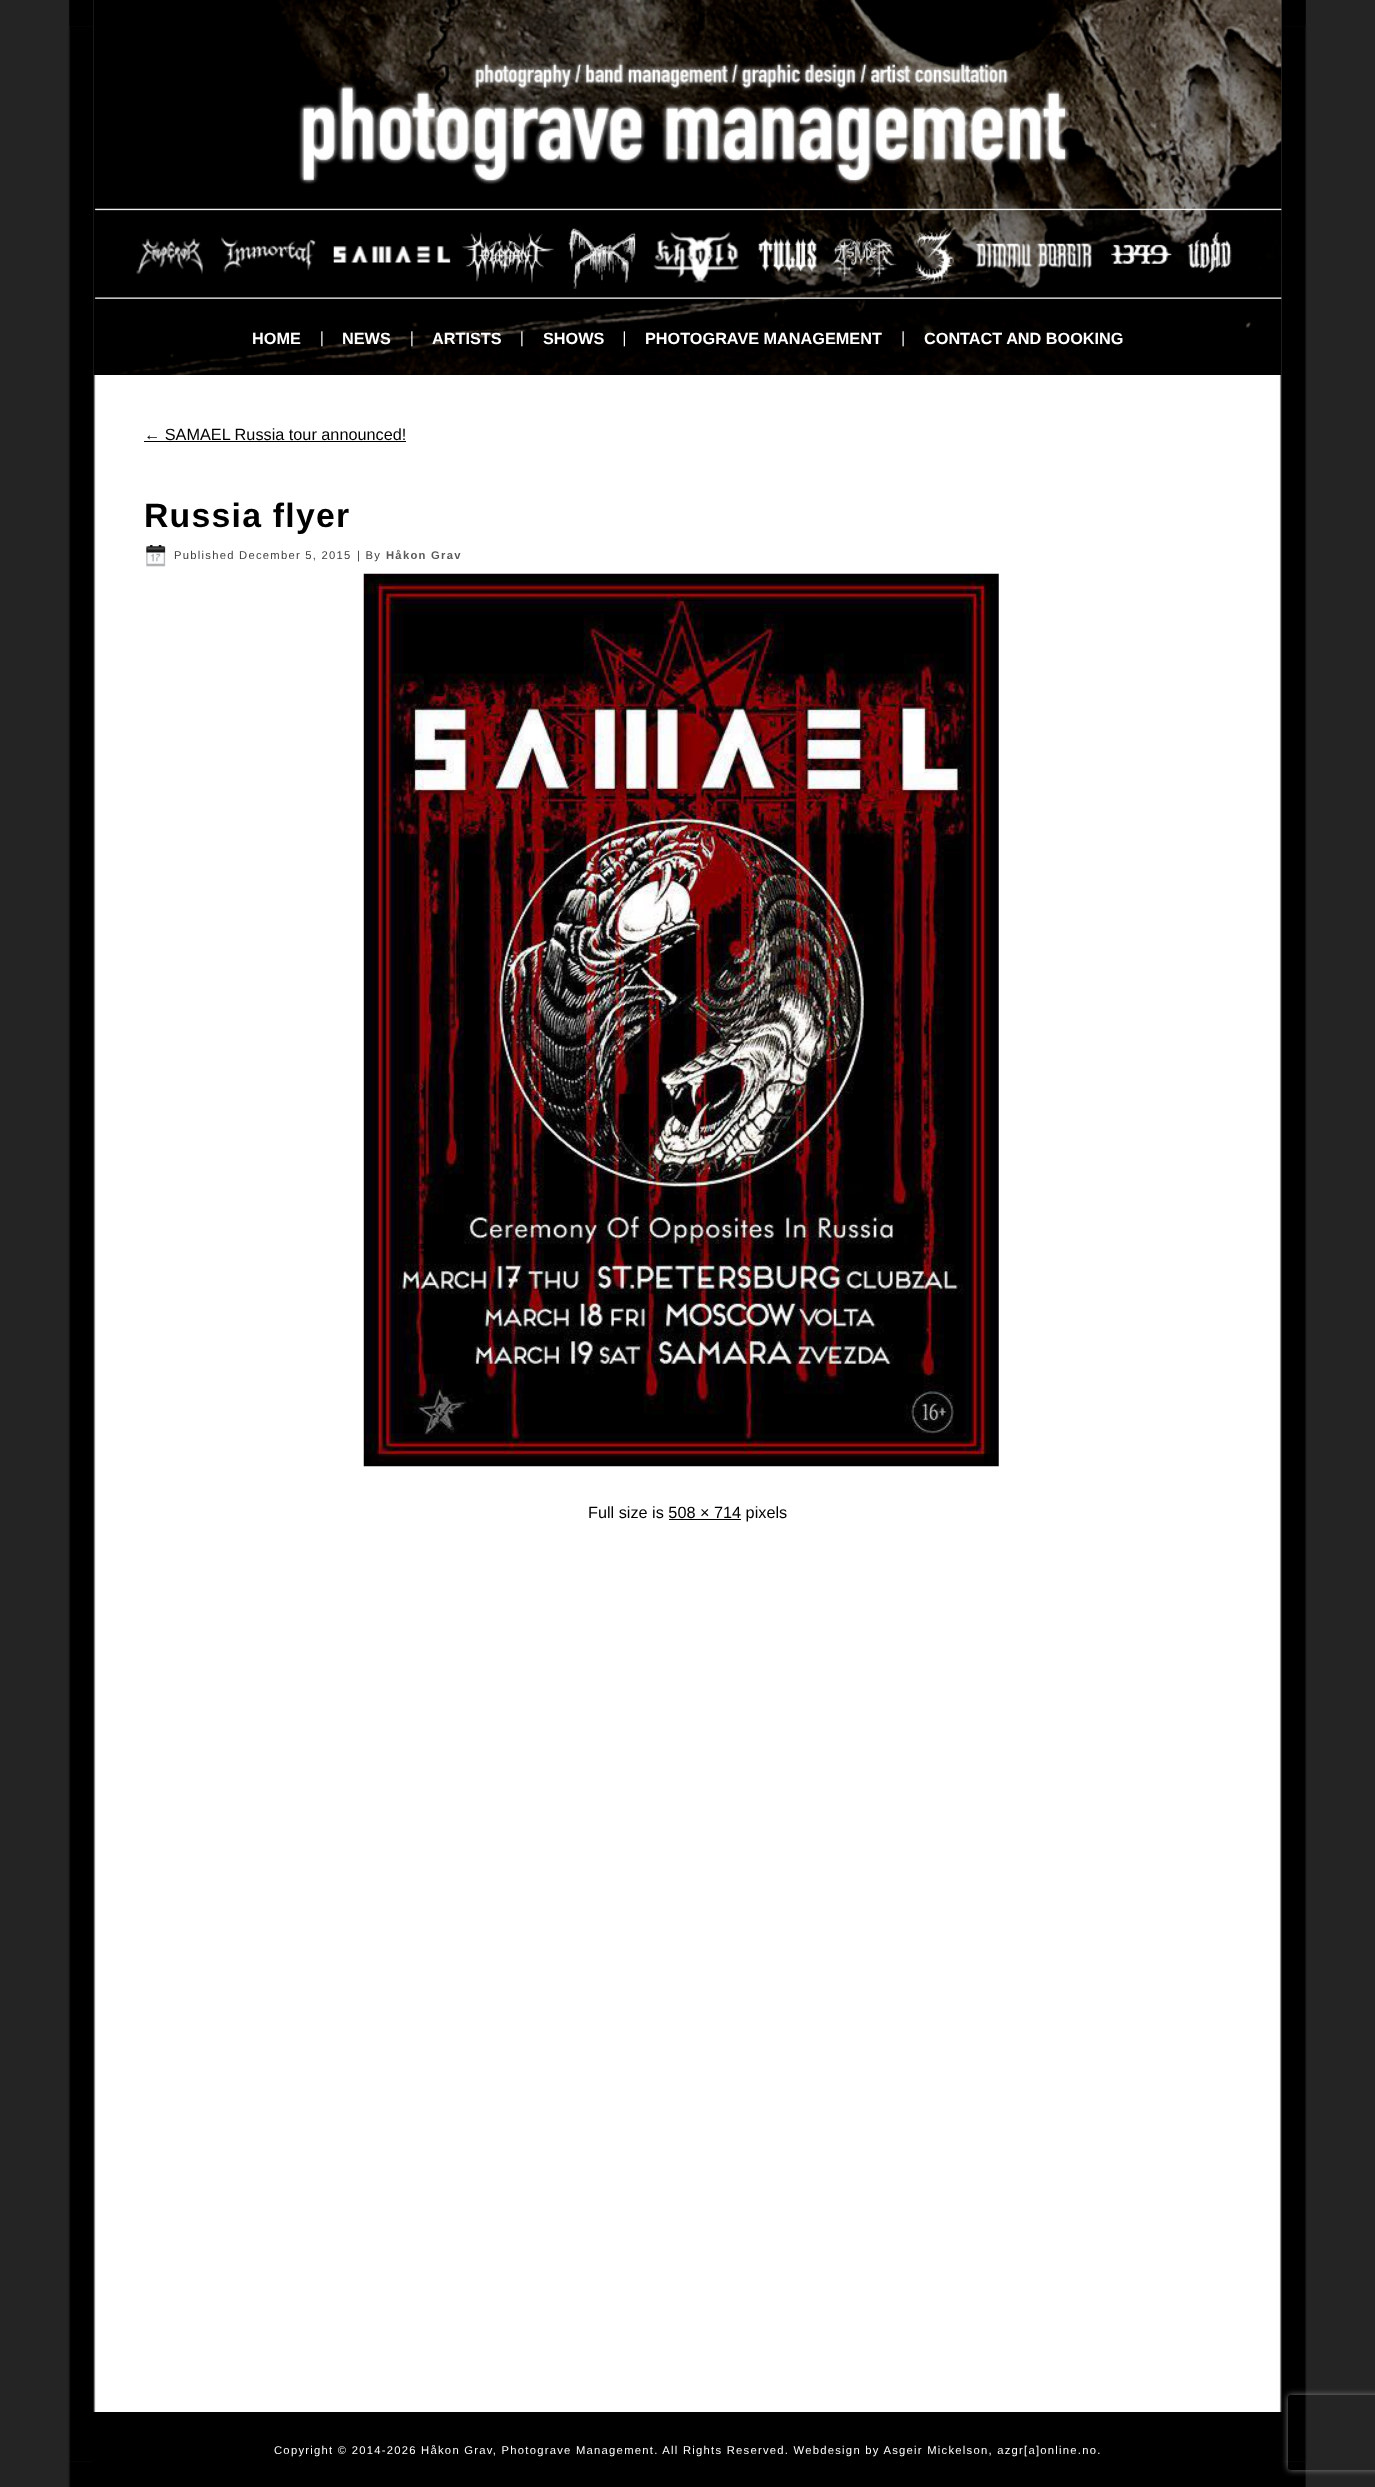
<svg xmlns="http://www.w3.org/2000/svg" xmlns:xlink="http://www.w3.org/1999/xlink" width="1375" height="2487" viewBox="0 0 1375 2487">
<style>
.cls-1{font:bold 16.25px Liberation Sans;fill:#ffffff}
.cls-2{font:16.25px Liberation Sans;fill:#000000}
.cls-3{font:bold 33.75px Liberation Sans;letter-spacing:1.25px;fill:#000000}
.cls-4{font:11.25px Liberation Sans;letter-spacing:1.25px;fill:#404040}
.cls-5{font:bold 11.25px Liberation Sans;letter-spacing:1.25px;fill:#595959}
.cls-6{font:11.25px Liberation Sans;letter-spacing:1.25px;fill:#ffffff}
</style>
<defs>
<clipPath id="clip1"><path d="M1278 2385H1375V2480H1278ZM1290.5 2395H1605.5C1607 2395 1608 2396 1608 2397.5V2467.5C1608 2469 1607 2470 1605.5 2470H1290.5C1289 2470 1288 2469 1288 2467.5V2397.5C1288 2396 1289 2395 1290.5 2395Z" clip-rule="evenodd"/></clipPath>
</defs>
<rect width="100%" height="100%" fill="#242424"/>
<image xlink:href="image0.png" x="68" y="0" width="26" height="2487"/>
<image xlink:href="image1.png" x="69" y="0" width="25" height="27"/>
<image xlink:href="image2.png" x="68" y="26" width="1212" height="2436"/>
<image xlink:href="image3.png" x="1280" y="26" width="27" height="2436"/>
<image xlink:href="image12.png" x="1281" y="0" width="25" height="2487"/>
<image xlink:href="image13.png" x="1281" y="0" width="25" height="27"/>
<image xlink:href="image4.png" x="93" y="0" width="1189" height="375"/>
<image xlink:href="image5.png" x="321" y="331" width="2" height="16"/>
<image xlink:href="image6.png" x="411" y="331" width="2" height="16"/>
<image xlink:href="image7.png" x="521" y="331" width="2" height="16"/>
<image xlink:href="image8.png" x="623" y="331" width="2" height="16"/>
<image xlink:href="image9.png" x="902" y="331" width="2" height="16"/>
<rect fill="#000000" x="144" y="441" width="262" height="1"/>
<image xlink:href="image10.png" x="146" y="545" width="20" height="22"/>
<image xlink:href="image11.png" x="363" y="573" width="636" height="894"/>
<rect fill="#000000" x="669" y="1519" width="72" height="1"/>
<rect fill="#000000" x="93" y="2412" width="1189" height="75"/>
<g clip-path="url(#clip1)">
<rect fill="#808080" filter="blur(3px)" x="1288" y="2395" width="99" height="75" rx="2.5"/>
</g>
<text class="cls-1" x="252" y="344">HOME</text>
<text class="cls-1" x="342" y="344">NEWS</text>
<text class="cls-1" x="432" y="344">ARTISTS</text>
<text class="cls-1" x="543" y="344">SHOWS</text>
<text class="cls-1" x="645" y="344">PHOTOGRAVE MANAGEMENT</text>
<text class="cls-1" x="924" y="344">CONTACT AND BOOKING</text>
<text class="cls-2" x="144" y="440">← SAMAEL Russia tour announced!</text>
<text class="cls-3" x="144" y="527">Russia flyer</text>
<text class="cls-4" x="174" y="559">Published December 5, 2015</text>
<text class="cls-4" x="357" y="559">| By</text>
<text class="cls-5" x="386" y="559">Håkon Grav</text>
<text class="cls-2" x="588" y="1518">Full size is 508 × 714 pixels</text>
<text class="cls-6" x="274" y="2454">Copyright © 2014-2026 Håkon Grav, Photograve Management. All Rights Reserved. Webdesign by Asgeir Mickelson, azgr[a]online.no.</text>
</svg>
